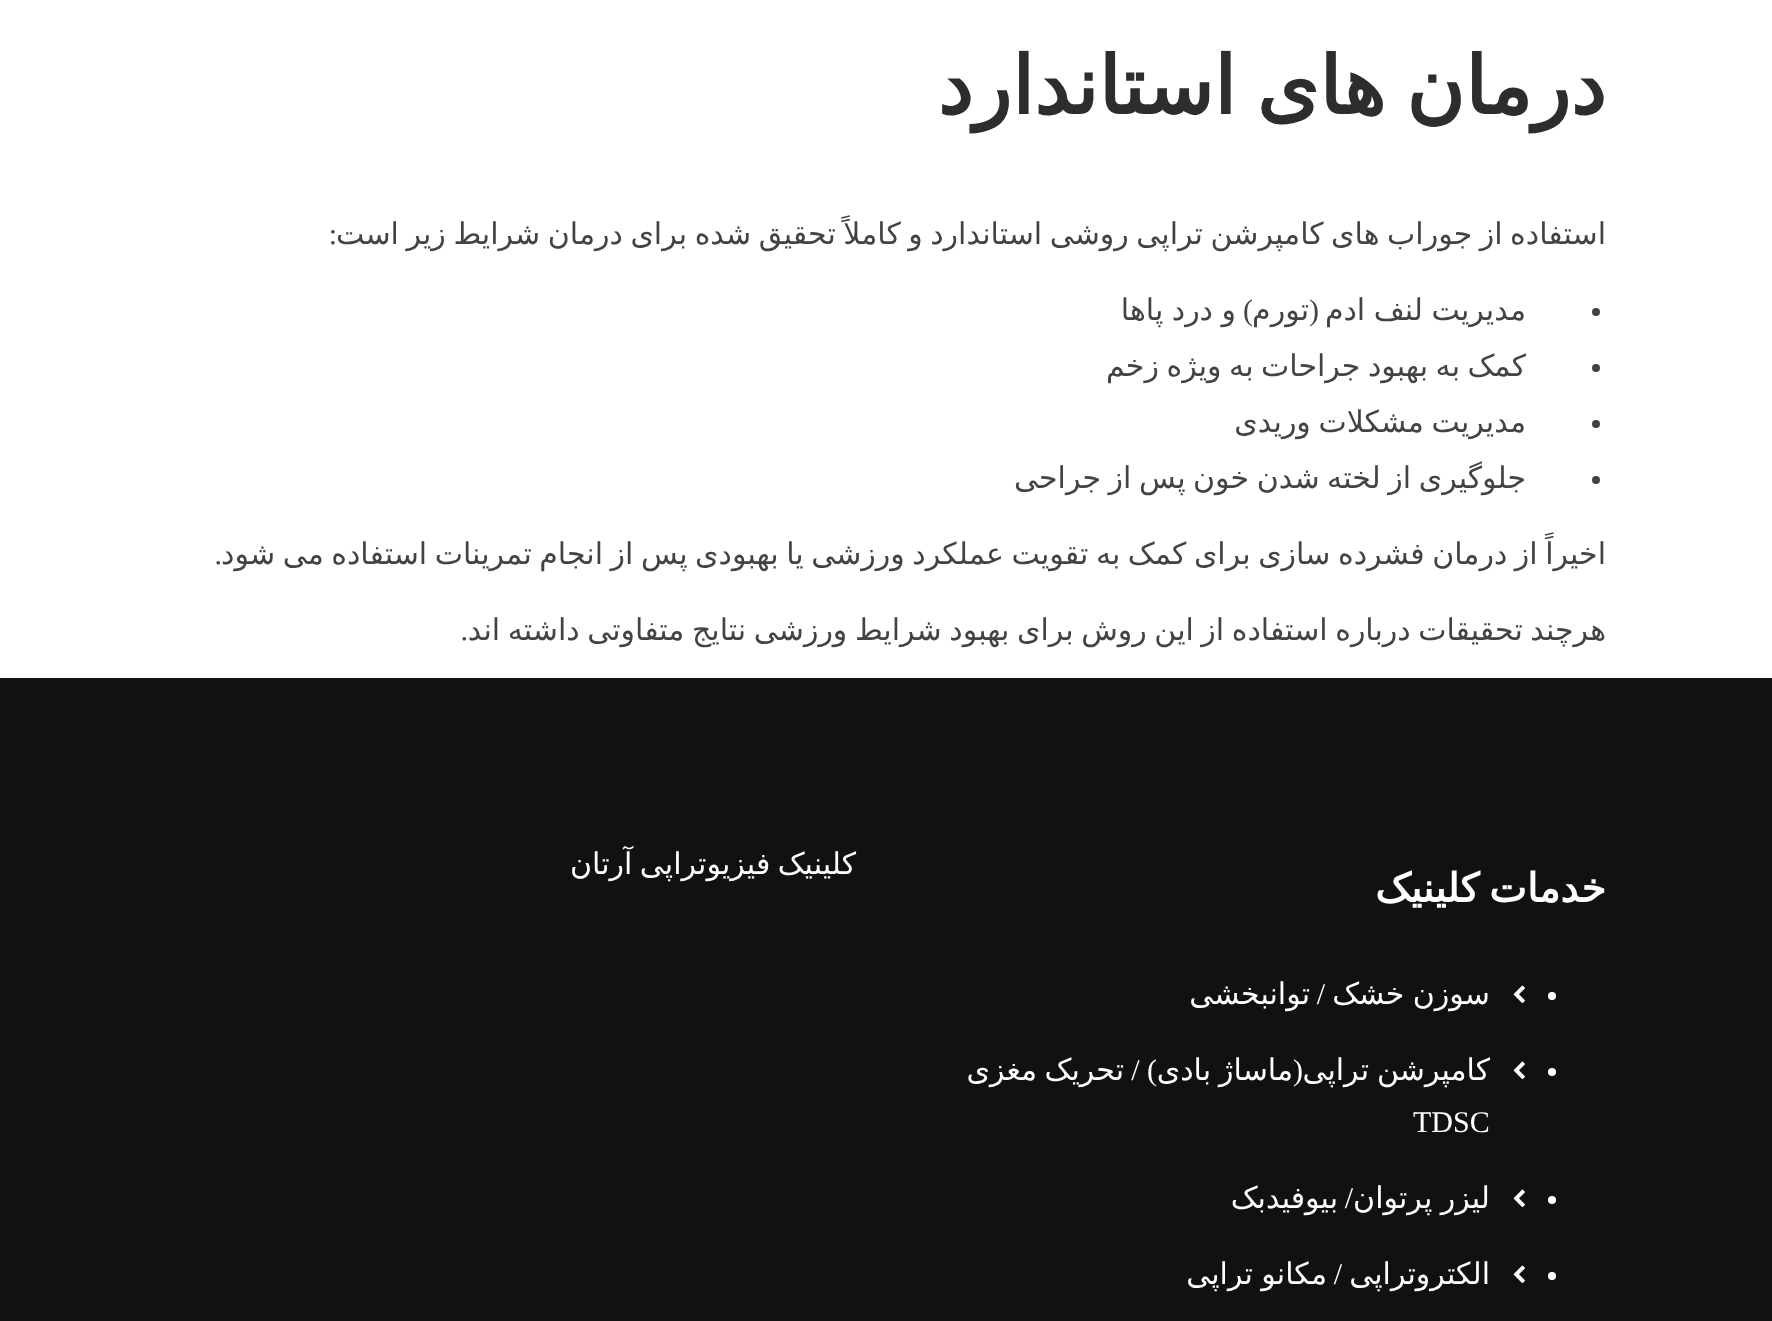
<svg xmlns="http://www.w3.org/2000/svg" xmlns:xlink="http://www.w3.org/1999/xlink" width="1772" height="1321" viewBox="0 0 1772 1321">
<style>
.cls-1{font:bold 80px DejaVu Sans;direction:rtl;fill:#2d2d2d}
.cls-2{font:30px DejaVu Sans;direction:rtl;fill:#434343}
.cls-3{font:30px Liberation Serif;direction:rtl;fill:#434343}
.cls-4{font:30px DejaVu Sans;direction:rtl;fill:#ffffff}
.cls-5{font:bold 40px DejaVu Sans;direction:rtl;fill:#ffffff}
.cls-6{font:30px Liberation Serif;direction:rtl;fill:#ffffff}
.cls-7{font:30px Liberation Serif;fill:#ffffff}
</style>
<rect width="100%" height="100%" fill="#ffffff"/>
<circle fill="#434343" cx="1596" cy="312" r="4"/>
<circle fill="#434343" cx="1596" cy="368" r="4"/>
<circle fill="#434343" cx="1596" cy="424" r="4"/>
<circle fill="#434343" cx="1596" cy="480" r="4"/>
<rect fill="#111111" x="0" y="678" width="1772" height="643"/>
<circle fill="#ffffff" cx="1552" cy="996" r="4"/>
<image xlink:href="image0.png" x="1513" y="985" width="12" height="19"/>
<circle fill="#ffffff" cx="1552" cy="1072" r="4"/>
<image xlink:href="image0.png" x="1513" y="1061" width="12" height="19"/>
<circle fill="#ffffff" cx="1552" cy="1200" r="4"/>
<image xlink:href="image0.png" x="1513" y="1189" width="12" height="19"/>
<circle fill="#ffffff" cx="1552" cy="1276" r="4"/>
<image xlink:href="image0.png" x="1513" y="1265" width="12" height="19"/>
<text class="cls-1" x="1606" y="114" word-spacing="-5">درمان های استاندارد</text>
<text class="cls-2" x="1606" y="244" word-spacing="-2">استفاده از جوراب های کامپرشن تراپی روشی استاندارد و کاملاً تحقیق شده برای درمان شرایط زیر است</text>
<text class="cls-3" x="337" y="244">:</text>
<text class="cls-2" x="1526" y="320" word-spacing="-1">مدیریت لنف ادم</text>
<text class="cls-3" x="1319" y="320">(</text>
<text class="cls-2" x="1309" y="320">تورم</text>
<text class="cls-3" x="1253" y="320">)</text>
<text class="cls-2" x="1236" y="320" word-spacing="-1">و درد پاها</text>
<text class="cls-2"><tspan x="1526" y="376" word-spacing="-2">کمک به بهبود جراحات به ویژه زخم</tspan><tspan x="1526" y="432" word-spacing="-2">مدیریت مشکلات وریدی</tspan><tspan x="1526" y="488" word-spacing="-2">جلوگیری از لخته شدن خون پس از جراحی</tspan></text>
<text class="cls-2" x="1606" y="564" word-spacing="-2">اخیراً از درمان فشرده سازی برای کمک به تقویت عملکرد ورزشی یا بهبودی پس از انجام تمرینات استفاده می شود</text>
<text class="cls-3" x="222" y="564">.</text>
<text class="cls-2" x="1606" y="640" word-spacing="-2">هرچند تحقیقات درباره استفاده از این روش برای بهبود شرایط ورزشی نتایج متفاوتی داشته اند</text>
<text class="cls-3" x="468" y="640">.</text>
<text class="cls-4" x="856" y="874" word-spacing="-2">کلینیک فیزیوتراپی آرتان</text>
<text class="cls-5" x="1606" y="902" word-spacing="-3">خدمات کلینیک</text>
<text class="cls-4" x="1490" y="1004" word-spacing="-1">سوزن خشک</text>
<text class="cls-6" x="1325" y="1004">/</text>
<text class="cls-4" x="1310" y="1004">توانبخشی</text>
<text class="cls-4" x="1490" y="1080">کامپرشن</text>
<text class="cls-4" x="1369" y="1080">تراپی</text>
<text class="cls-6" x="1303" y="1080">(</text>
<text class="cls-4" x="1293" y="1080">ماساژ</text>
<text class="cls-4" x="1211" y="1080">بادی</text>
<text class="cls-6" x="1157" y="1080">) /</text>
<text class="cls-4" x="1124" y="1080">تحریک</text>
<text class="cls-4" x="1037" y="1080">مغزی</text>
<text class="cls-7" x="1413" y="1132">TDSC</text>
<text class="cls-4" x="1490" y="1208" word-spacing="-1">لیزر پرتوان</text>
<text class="cls-6" x="1353" y="1208">/</text>
<text class="cls-4" x="1338" y="1208">بیوفیدبک</text>
<text class="cls-4" x="1490" y="1284">الکتروتراپی</text>
<text class="cls-6" x="1342" y="1284">/</text>
<text class="cls-4" x="1327" y="1284" word-spacing="-1">مکانو تراپی</text>
</svg>
